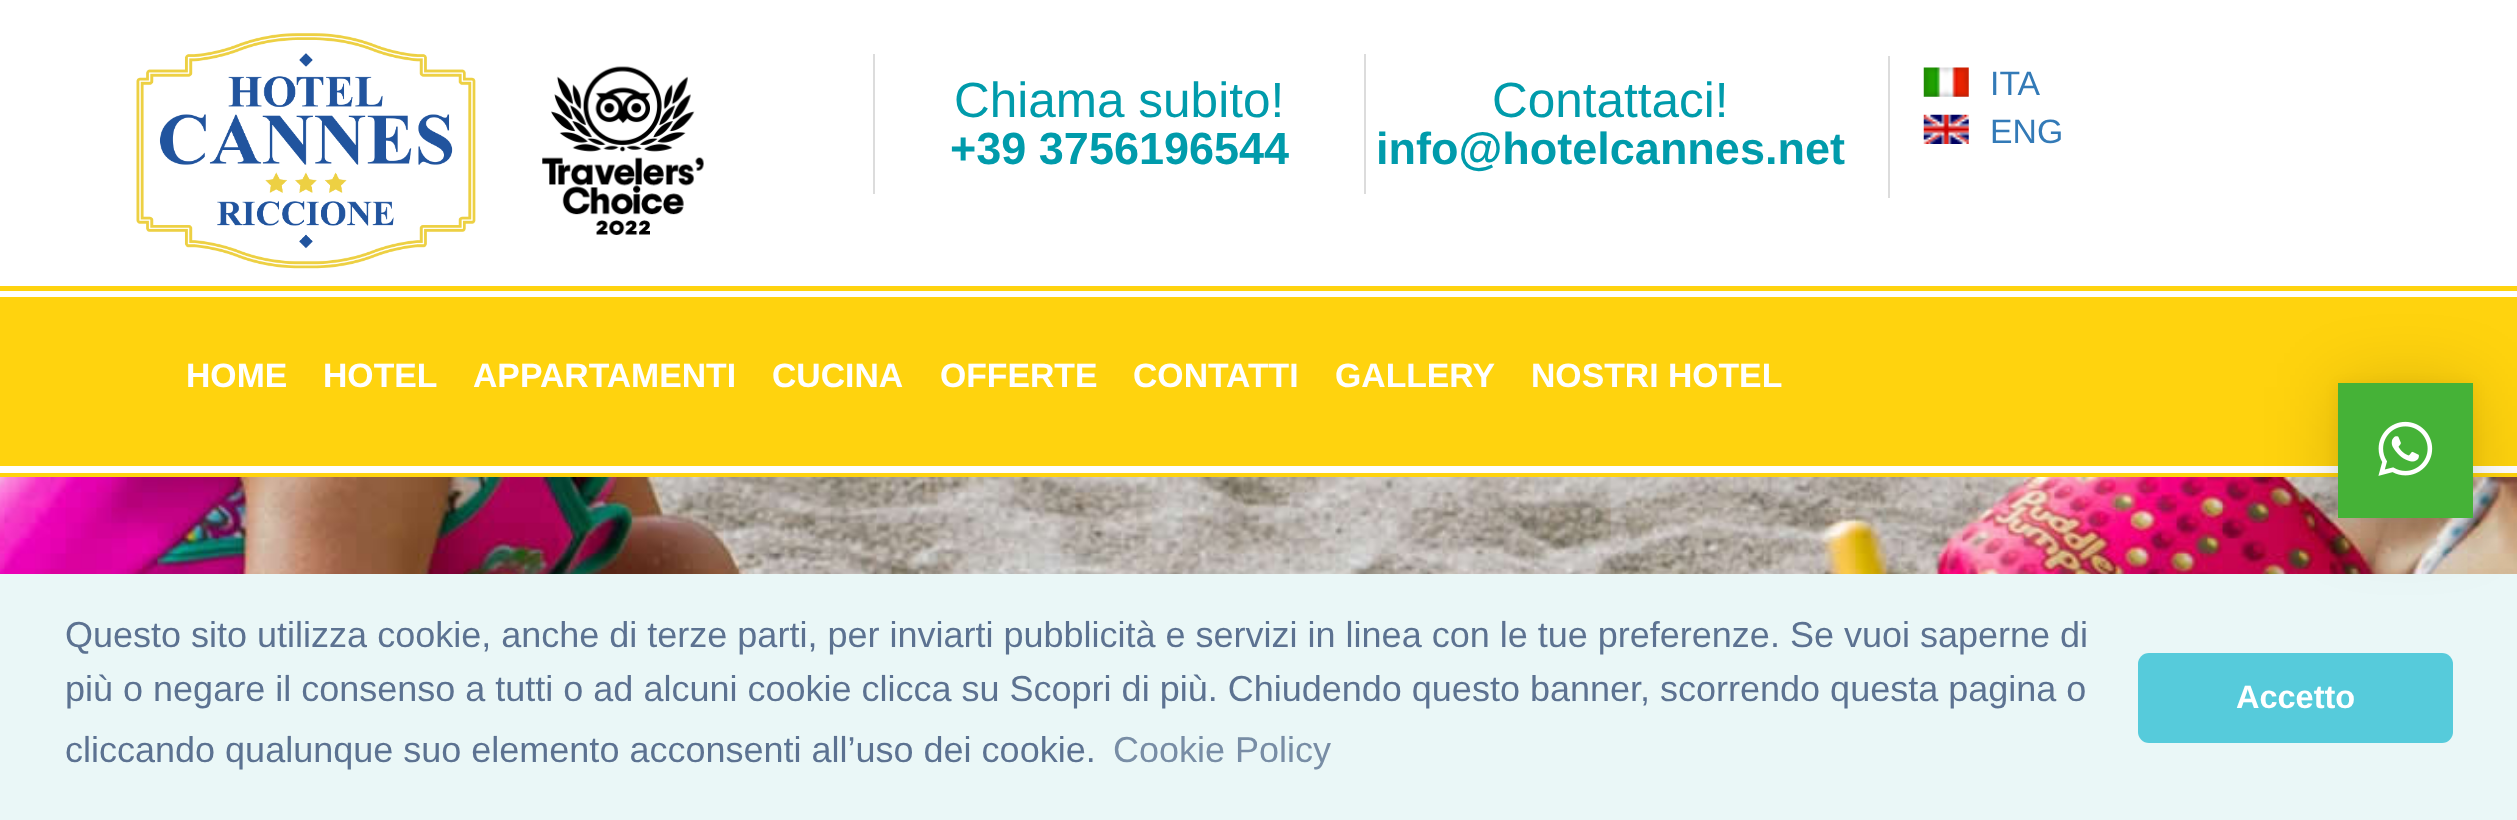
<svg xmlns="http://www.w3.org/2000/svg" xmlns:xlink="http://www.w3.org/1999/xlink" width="2517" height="820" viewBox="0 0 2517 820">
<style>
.cls-1{font:49.5px Liberation Sans;fill:#009bab}
.cls-2{font:bold 45px Liberation Sans;fill:#009bab}
.cls-3{font:33.75px Liberation Sans;fill:#337ab7}
.cls-4{font:bold 33.75px Liberation Sans;fill:#ffffff}
.cls-5{font:36px Liberation Sans;fill:#5c7291}
.cls-6{font:36px Liberation Sans;fill:#788da5}
.cls-7{font:bold 32.5px Liberation Sans;fill:#ffffff}
</style>
<rect width="100%" height="100%" fill="#ffffff"/>
<image xlink:href="image0.png" x="136" y="33" width="340" height="236"/>
<image xlink:href="image1.png" x="542" y="66" width="162" height="169"/>
<rect fill="#dcdcdc" x="873" y="54" width="2" height="140"/>
<rect fill="#dcdcdc" x="1364" y="54" width="2" height="140"/>
<rect fill="#dcdcdc" x="1888" y="56" width="2" height="142"/>
<image xlink:href="image2.png" x="1923" y="67" width="46" height="30"/>
<image xlink:href="image3.png" x="1923" y="114" width="46" height="30"/>
<rect fill="#ffd30e" x="0" y="286" width="2517" height="5"/>
<rect fill="#ffd30e" x="0" y="297" width="2517" height="169"/>
<rect fill="#ffd30e" x="0" y="473" width="2517" height="4"/>
<image xlink:href="image5.png" x="0" y="477" width="2517" height="97"/>
<rect fill="#eaf7f7" x="0" y="574" width="2517" height="246"/>
<rect fill="#000000" fill-opacity="0.16" filter="blur(36px)" x="2338" y="387" width="135" height="135"/>
<rect fill="#000000" fill-opacity="0.06" filter="blur(7px)" x="2338" y="385" width="135" height="135"/>
<rect fill="#45b237" x="2338" y="383" width="135" height="135"/>
<image xlink:href="image4.png" x="2378" y="421" width="55" height="55"/>
<rect fill="#56cbdb" x="2138" y="653" width="315" height="90" rx="11"/>
<text class="cls-1" x="954" y="117">Chiama subito!</text>
<text class="cls-2" x="950" y="164">+39 3756196544</text>
<text class="cls-1" x="1492" y="117">Contattaci!</text>
<text class="cls-2" x="1376" y="164">info@hotelcannes.net</text>
<text class="cls-3"><tspan x="1990" y="95">ITA</tspan><tspan x="1990" y="143">ENG</tspan></text>
<text class="cls-4" x="186" y="387">HOME</text>
<text class="cls-4" x="323" y="387">HOTEL</text>
<text class="cls-4" x="473" y="387">APPARTAMENTI</text>
<text class="cls-4" x="772" y="387">CUCINA</text>
<text class="cls-4" x="940" y="387">OFFERTE</text>
<text class="cls-4" x="1133" y="387">CONTATTI</text>
<text class="cls-4" x="1335" y="387">GALLERY</text>
<text class="cls-4" x="1531" y="387">NOSTRI HOTEL</text>
<text class="cls-5"><tspan x="65" y="647">Questo sito utilizza cookie, anche di terze parti, per inviarti pubblicità e servizi in linea con le tue preferenze. Se vuoi saperne di</tspan><tspan x="65" y="701">più o negare il consenso a tutti o ad alcuni cookie clicca su Scopri di più. Chiudendo questo banner, scorrendo questa pagina o</tspan><tspan x="65" y="762">cliccando qualunque suo elemento acconsenti all’uso dei cookie.</tspan></text>
<text class="cls-6" x="1113" y="762">Cookie Policy</text>
<text class="cls-7" x="2236" y="708">Accetto</text>
</svg>
